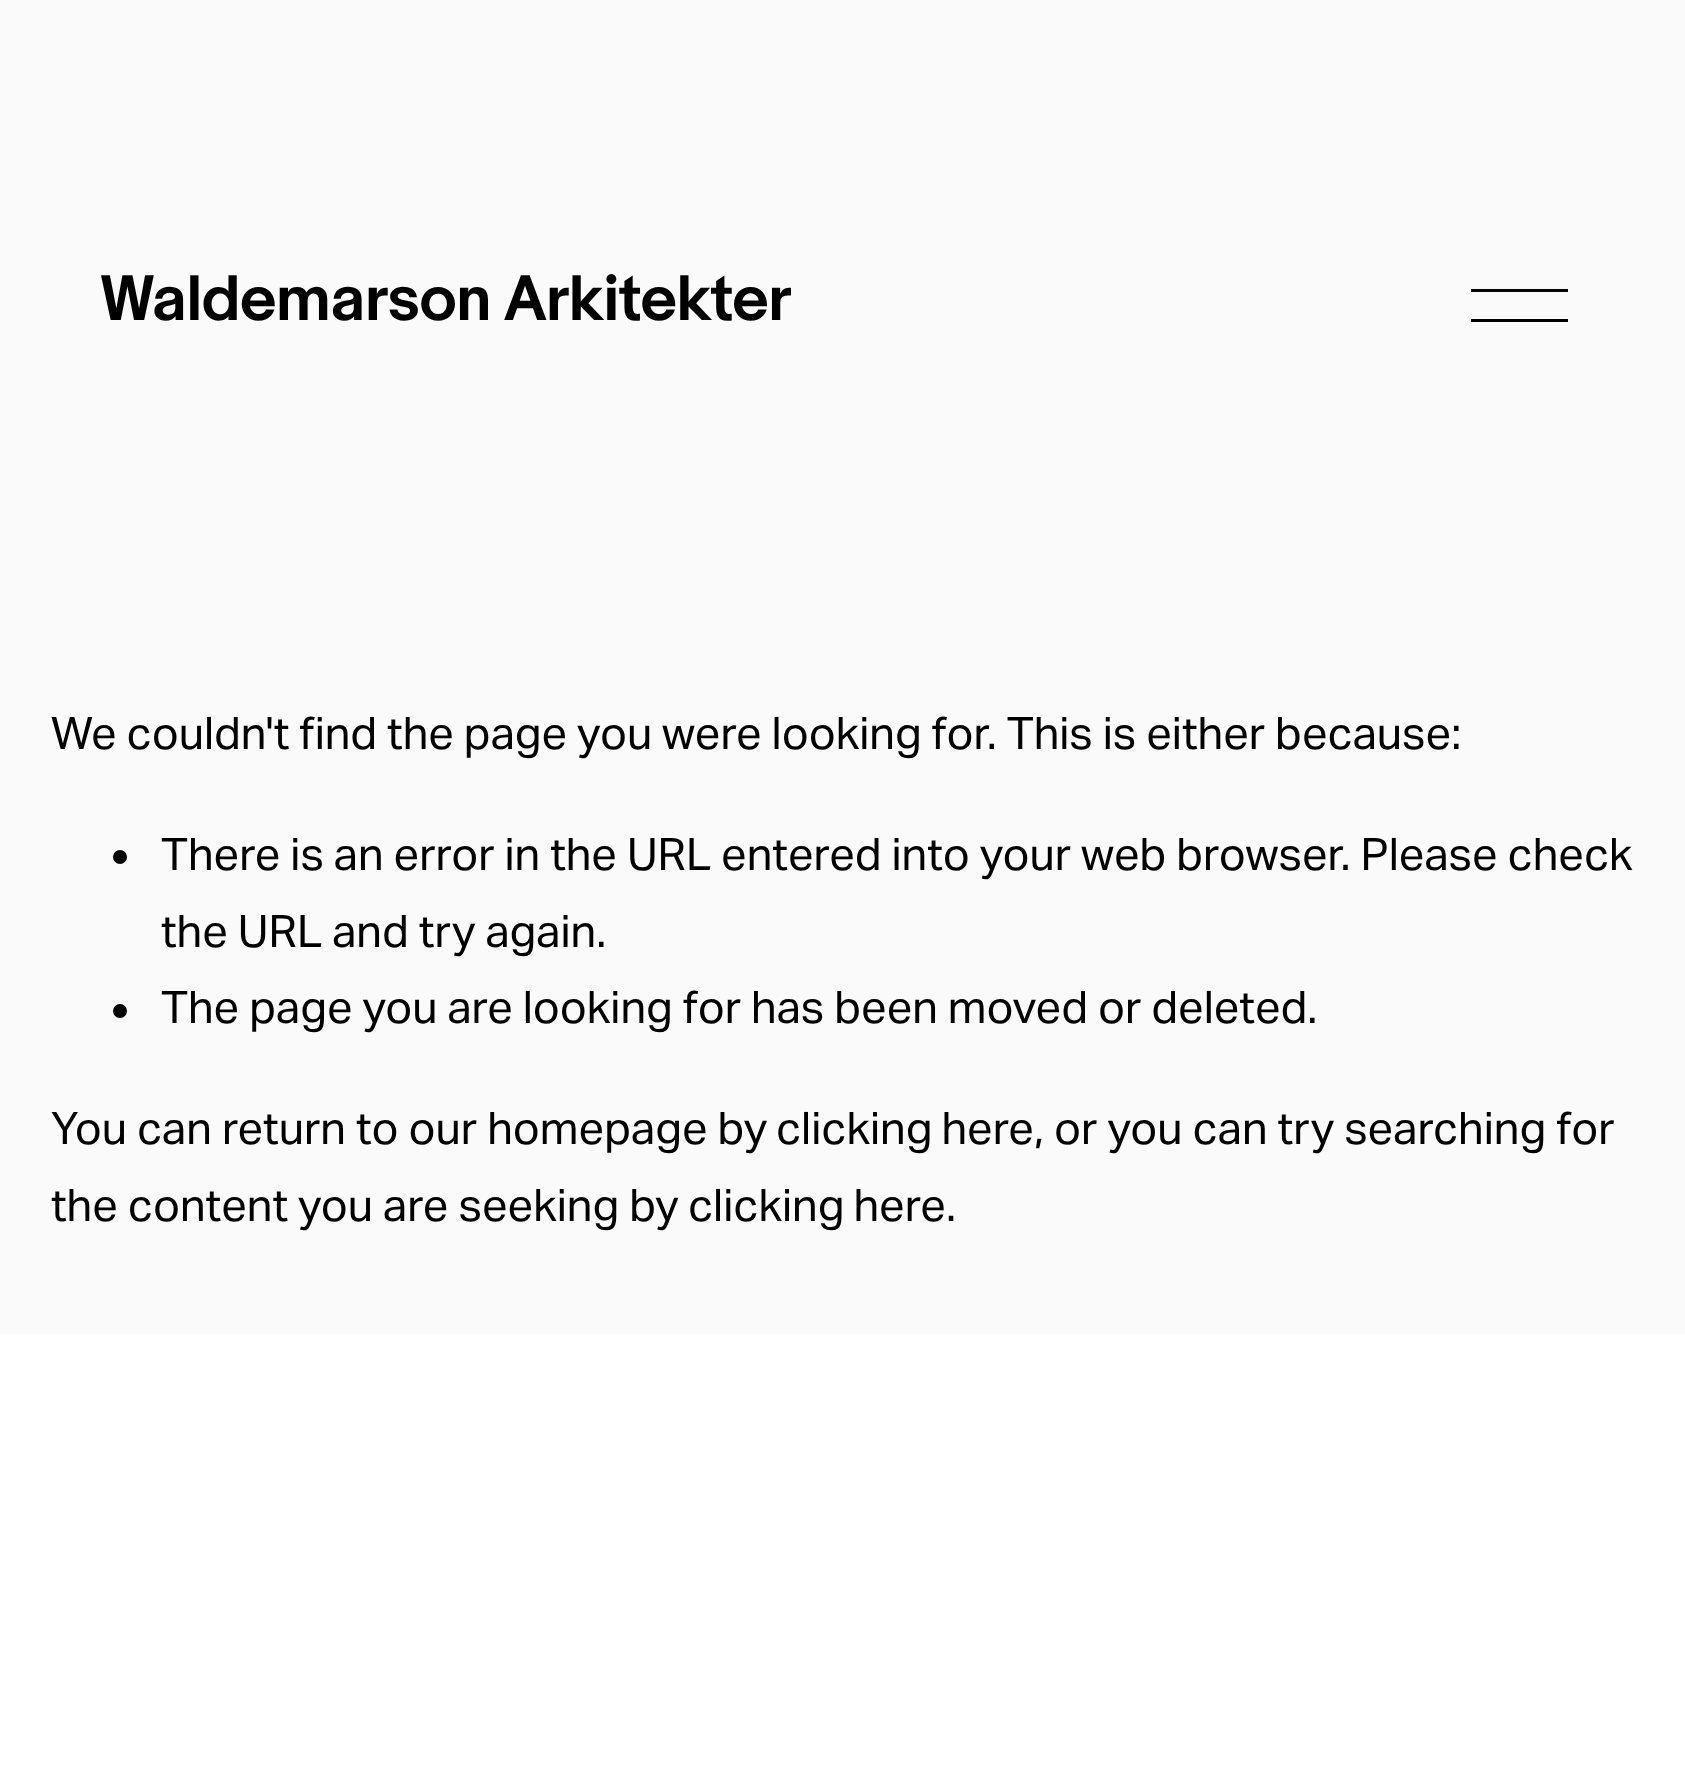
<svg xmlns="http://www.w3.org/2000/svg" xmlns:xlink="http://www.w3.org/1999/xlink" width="1685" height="1791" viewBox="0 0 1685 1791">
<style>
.cls-1{font:600 60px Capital;fill:#000000}
.cls-2{font:44.95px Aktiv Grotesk;fill:#000000}
</style>
<rect width="100%" height="100%" fill="#fafafa"/>
<rect fill="#000000" x="1471" y="289" width="97" height="3"/>
<rect fill="#000000" x="1471" y="319" width="97" height="3"/>
<circle fill="#000000" cx="120" cy="857" r="7"/>
<circle fill="#000000" cx="120" cy="1011" r="7"/>
<rect fill="#ffffff" x="0" y="1334" width="1685" height="457"/>
<text class="cls-1" x="101" y="320">Waldemarson Arkitekter</text>
<text class="cls-2" x="51" y="749" word-spacing="-0.1">We couldn't find the page you were looking for. This is either because:</text>
<text class="cls-2"><tspan x="161" y="870" word-spacing="-0.1">There is an error in the URL entered into your web browser. Please check</tspan><tspan x="161" y="947">the URL and try again.</tspan><tspan x="161" y="1023" word-spacing="-0.1">The page you are looking for has been moved or deleted.</tspan></text>
<text class="cls-2" x="51" y="1144">You can return to our homepage by</text>
<text class="cls-2" x="776" y="1144" word-spacing="-1">clicking here</text>
<text class="cls-2" x="1034" y="1144">, or you can try searching for</text>
<text class="cls-2" x="51" y="1221">the content you are seeking by</text>
<text class="cls-2" x="688" y="1221" word-spacing="-1">clicking here</text>
<text class="cls-2" x="946" y="1221">.</text>
</svg>
